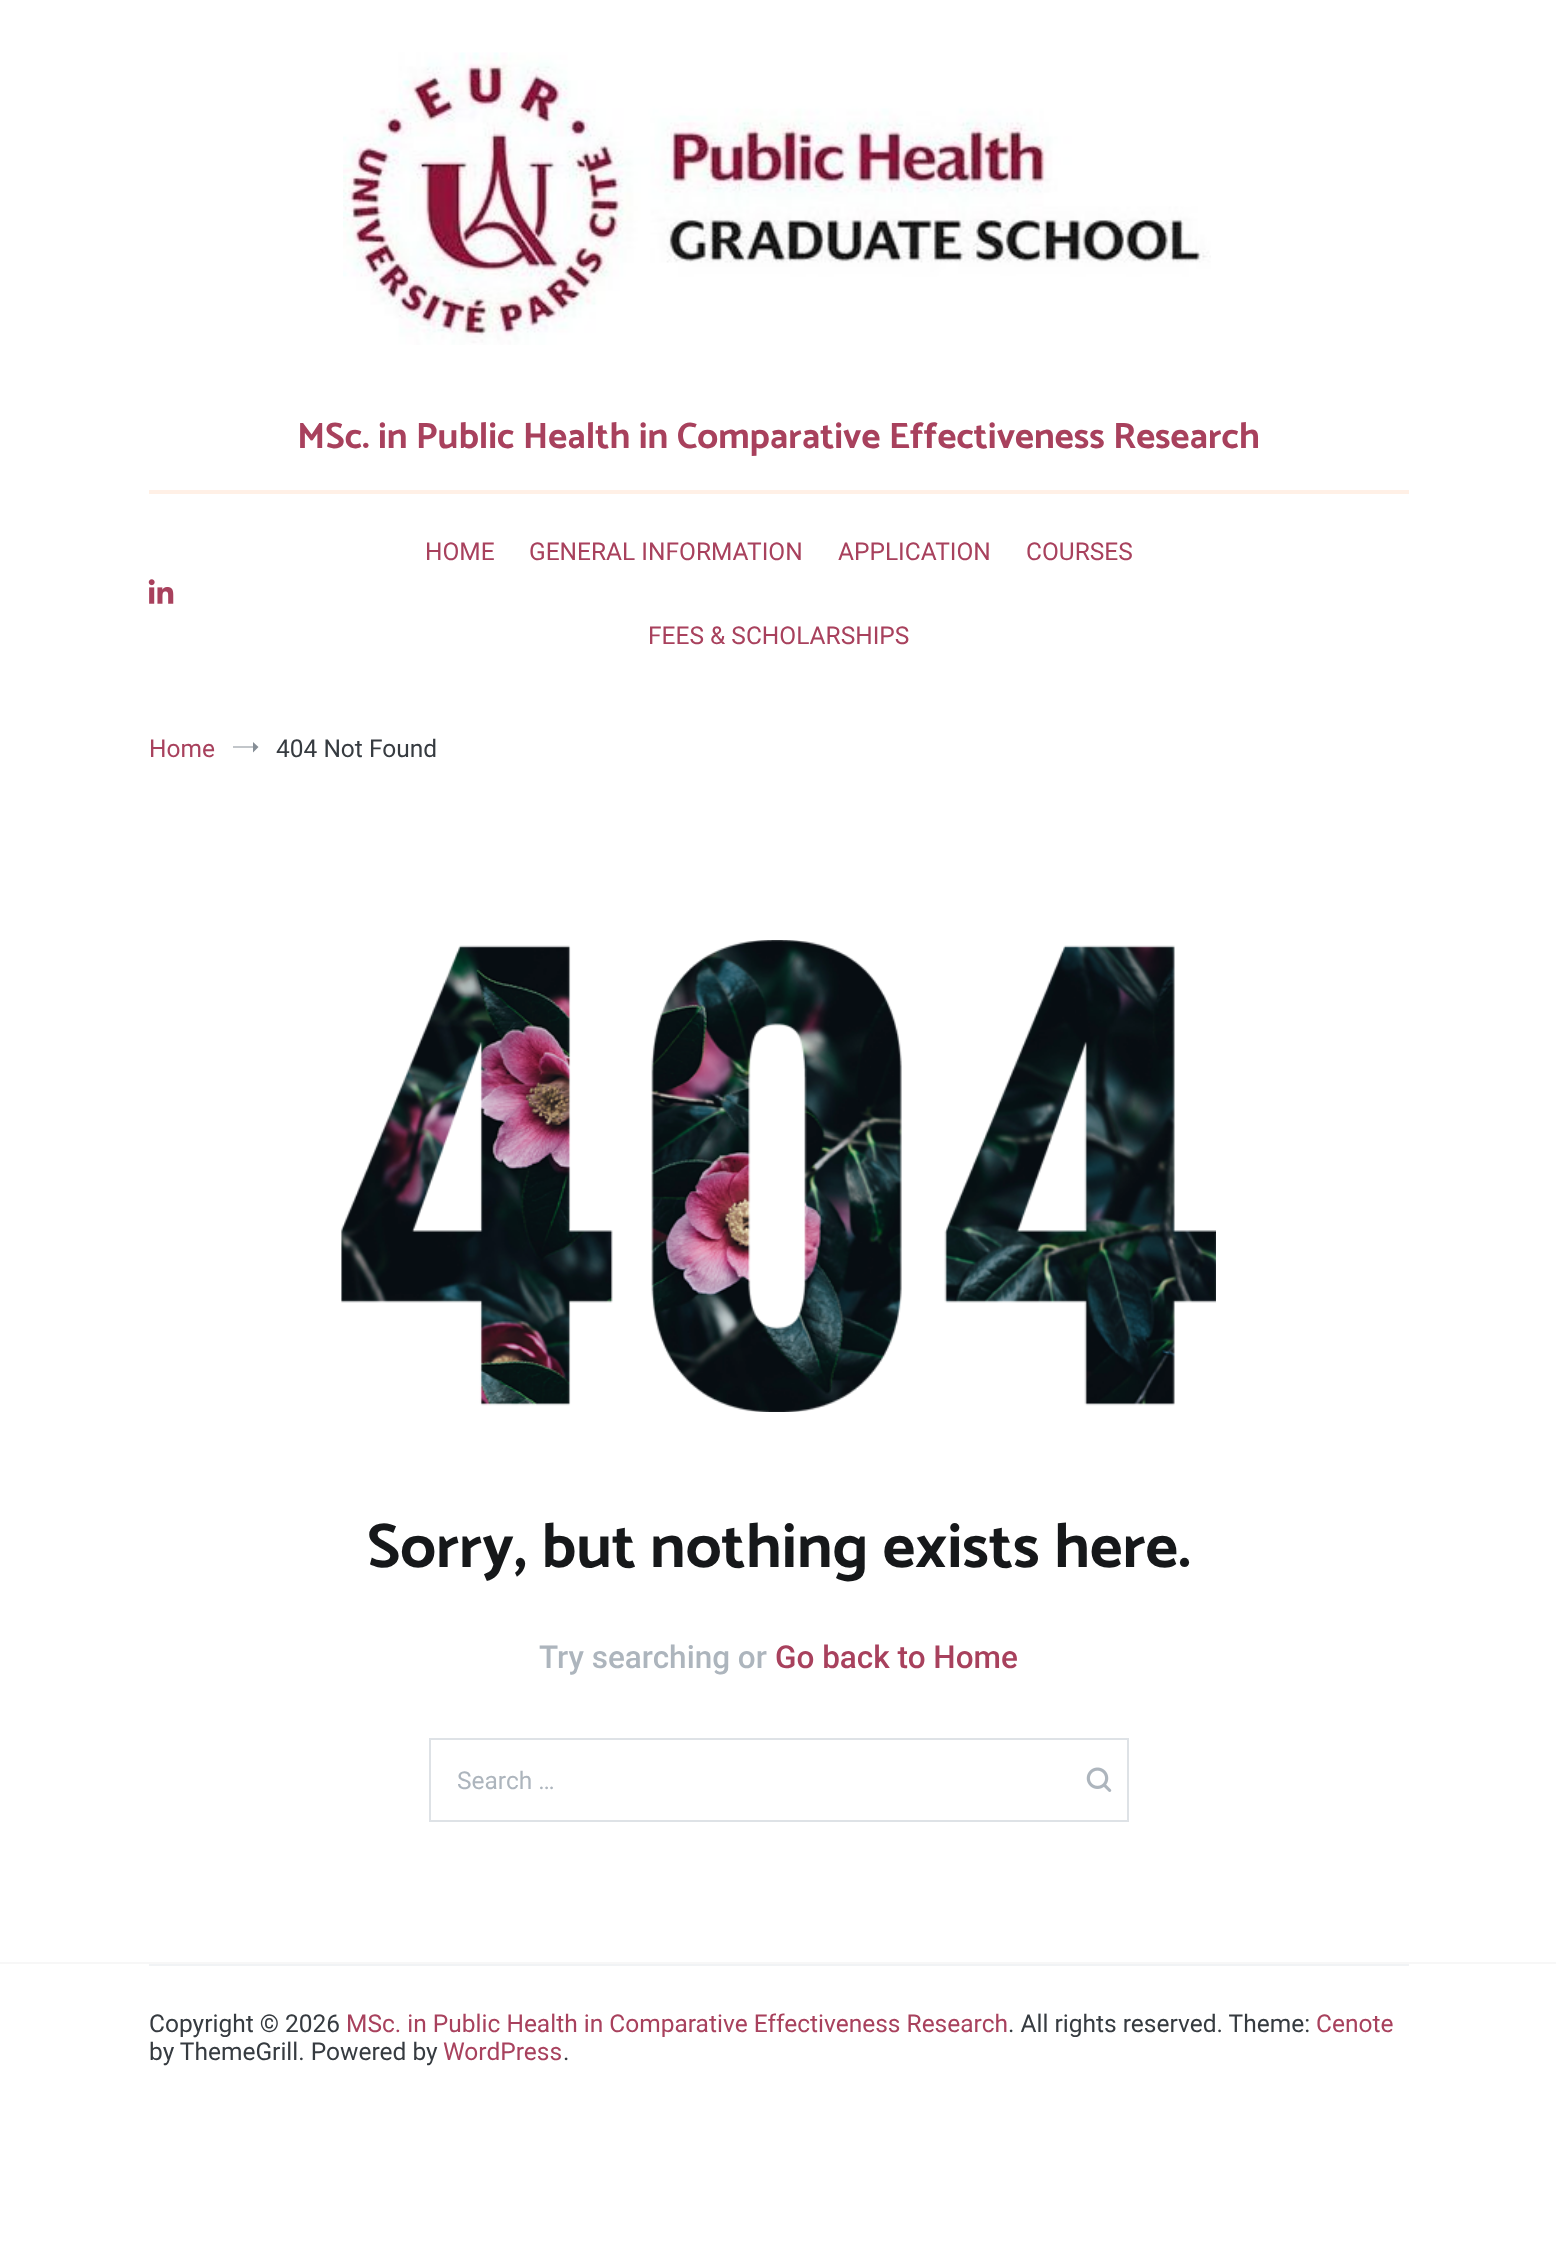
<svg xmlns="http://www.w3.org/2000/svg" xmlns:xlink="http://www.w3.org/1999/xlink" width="1556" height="2262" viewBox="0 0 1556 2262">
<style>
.cls-1{font:bold 36.75px Catamaran;fill:#a8415d}
.cls-2{font:24.5px Roboto;fill:#a8415d}
.cls-3{font:24.5px Roboto;fill:#363b40}
.cls-4{font:bold 63px Catamaran;fill:#16181a}
.cls-5{font:500 31.5px Roboto;fill:#adb5bd}
.cls-6{font:500 31.5px Roboto;fill:#a8415d}
.cls-7{font:24.5px Roboto;fill:#adb5bd}
</style>
<rect width="100%" height="100%" fill="#ffffff"/>
<image xlink:href="image0.png" x="343" y="52" width="868" height="293"/>
<rect fill="#fff0e6" x="149" y="490" width="1260" height="4"/>
<image xlink:href="image1.png" x="148" y="579" width="26" height="25"/>
<path fill="#868e96" d="M258.5 747L253 752.5V742ZM233 746.5H253V747.5H233Z"/>
<image xlink:href="image2.png" x="341" y="940" width="875" height="472"/>
<rect fill="none" stroke="#dee2e6" stroke-width="2" x="430" y="1739" width="698" height="82"/>
<image xlink:href="image3.png" x="1086" y="1767" width="26" height="25"/>
<rect fill="#f7f7f7" x="0" y="1962" width="1556" height="2"/>
<rect fill="#f1f3f5" x="149" y="1964" width="1260" height="2"/>
<text class="cls-1" x="297" y="448">MSc. in Public Health in Comparative Effectiveness Research</text>
<text class="cls-2" x="425" y="560">HOME</text>
<text class="cls-2" x="529" y="560">GENERAL INFORMATION</text>
<text class="cls-2" x="838" y="560">APPLICATION</text>
<text class="cls-2" x="1026" y="560">COURSES</text>
<text class="cls-2" x="648" y="644">FEES &amp; SCHOLARSHIPS</text>
<text class="cls-2" x="149" y="757">Home</text>
<text class="cls-3" x="276" y="757">404 Not Found</text>
<text class="cls-4" x="367" y="1567">Sorry, but nothing exists here.</text>
<text class="cls-5" x="539" y="1668">Try searching or</text>
<text class="cls-6" x="775" y="1668">Go back to Home</text>
<text class="cls-7" x="457" y="1789">Search …</text>
<text class="cls-3" x="149" y="2032">Copyright © 2026</text>
<text class="cls-2" x="346" y="2032">MSc. in Public Health in Comparative Effectiveness Research</text>
<text class="cls-3" x="1008" y="2032">. All rights reserved. Theme:</text>
<text class="cls-2" x="1316" y="2032">Cenote</text>
<text class="cls-3" x="149" y="2060">by ThemeGrill. Powered by</text>
<text class="cls-2" x="443" y="2060">WordPress</text>
<text class="cls-3" x="563" y="2060">.</text>
</svg>
